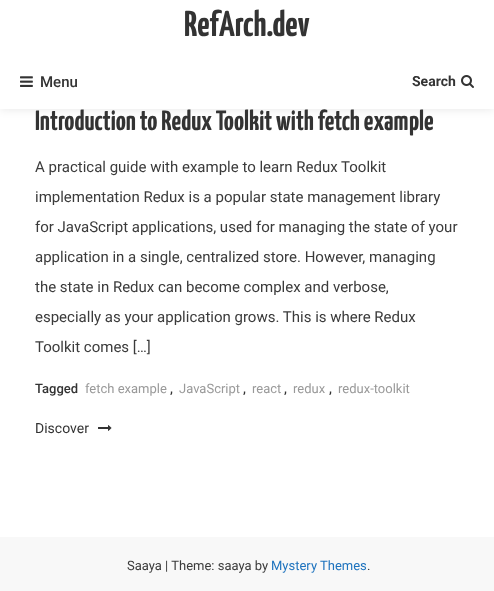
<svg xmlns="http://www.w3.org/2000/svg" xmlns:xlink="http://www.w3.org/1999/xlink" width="494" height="591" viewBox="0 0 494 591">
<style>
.cls-1{font:bold 36px Yanone Kaffeesatz;fill:#333333}
.cls-2{font:500 15px Roboto;fill:#333333}
.cls-3{font:bold 14px Roboto;fill:#333333}
.cls-4{font:bold 28px Yanone Kaffeesatz;fill:#333333}
.cls-5{font:15px Roboto;fill:#3b3b3b}
.cls-6{font:500 13px Roboto;fill:#333333}
.cls-7{font:13px Roboto;fill:#999999}
.cls-8{font:14px Roboto;fill:#333333}
.cls-9{font:13px Roboto;fill:#3b3b3b}
.cls-10{font:13px Roboto;fill:#1e73be}
</style>
<rect width="100%" height="100%" fill="#ffffff"/>
<rect fill="#000000" fill-opacity="0.1" filter="blur(5px)" x="0" y="0" width="494" height="109"/>
<rect fill="#ffffff" x="0" y="0" width="494" height="109"/>
<image xlink:href="image0.png" x="20" y="76" width="13" height="11"/>
<image xlink:href="image1.png" x="461" y="75" width="13" height="13"/>
<image xlink:href="image2.png" x="98" y="425" width="14" height="6"/>
<rect fill="#f8f8f8" x="0" y="537" width="494" height="54"/>
<text class="cls-1" x="184" y="36">RefArch.dev</text>
<text class="cls-2" x="40" y="87">Menu</text>
<text class="cls-3" x="412" y="86">Search</text>
<text class="cls-4" x="35" y="130">Introduction to Redux Toolkit with fetch example</text>
<text class="cls-5" x="35" y="172">A practical guide with example to learn Redux Toolkit</text>
<text class="cls-5" x="35" y="202">implementation Redux is a popular state management library</text>
<text class="cls-5" x="35" y="232">for JavaScript applications, used for managing the state of your</text>
<text class="cls-5" x="35" y="262">application in a single, centralized store. However, managing</text>
<text class="cls-5" x="35" y="292">the state in Redux can become complex and verbose,</text>
<text class="cls-5" x="35" y="322">especially as your application grows. This is where Redux</text>
<text class="cls-5" x="35" y="352">Toolkit comes […]</text>
<text class="cls-6" x="35" y="393">Tagged</text>
<text class="cls-7" x="85" y="393">fetch example</text>
<text class="cls-6" x="170" y="393">,</text>
<text class="cls-7" x="179" y="393">JavaScript</text>
<text class="cls-6" x="243" y="393">,</text>
<text class="cls-7" x="252" y="393">react</text>
<text class="cls-6" x="284" y="393">,</text>
<text class="cls-7" x="293" y="393">redux</text>
<text class="cls-6" x="329" y="393">,</text>
<text class="cls-7" x="338" y="393">redux-toolkit</text>
<text class="cls-8" x="35" y="433">Discover</text>
<text class="cls-9" x="127" y="570">Saaya | Theme: saaya by</text>
<text class="cls-10" x="271" y="570">Mystery Themes</text>
<text class="cls-9" x="367" y="570">.</text>
</svg>
